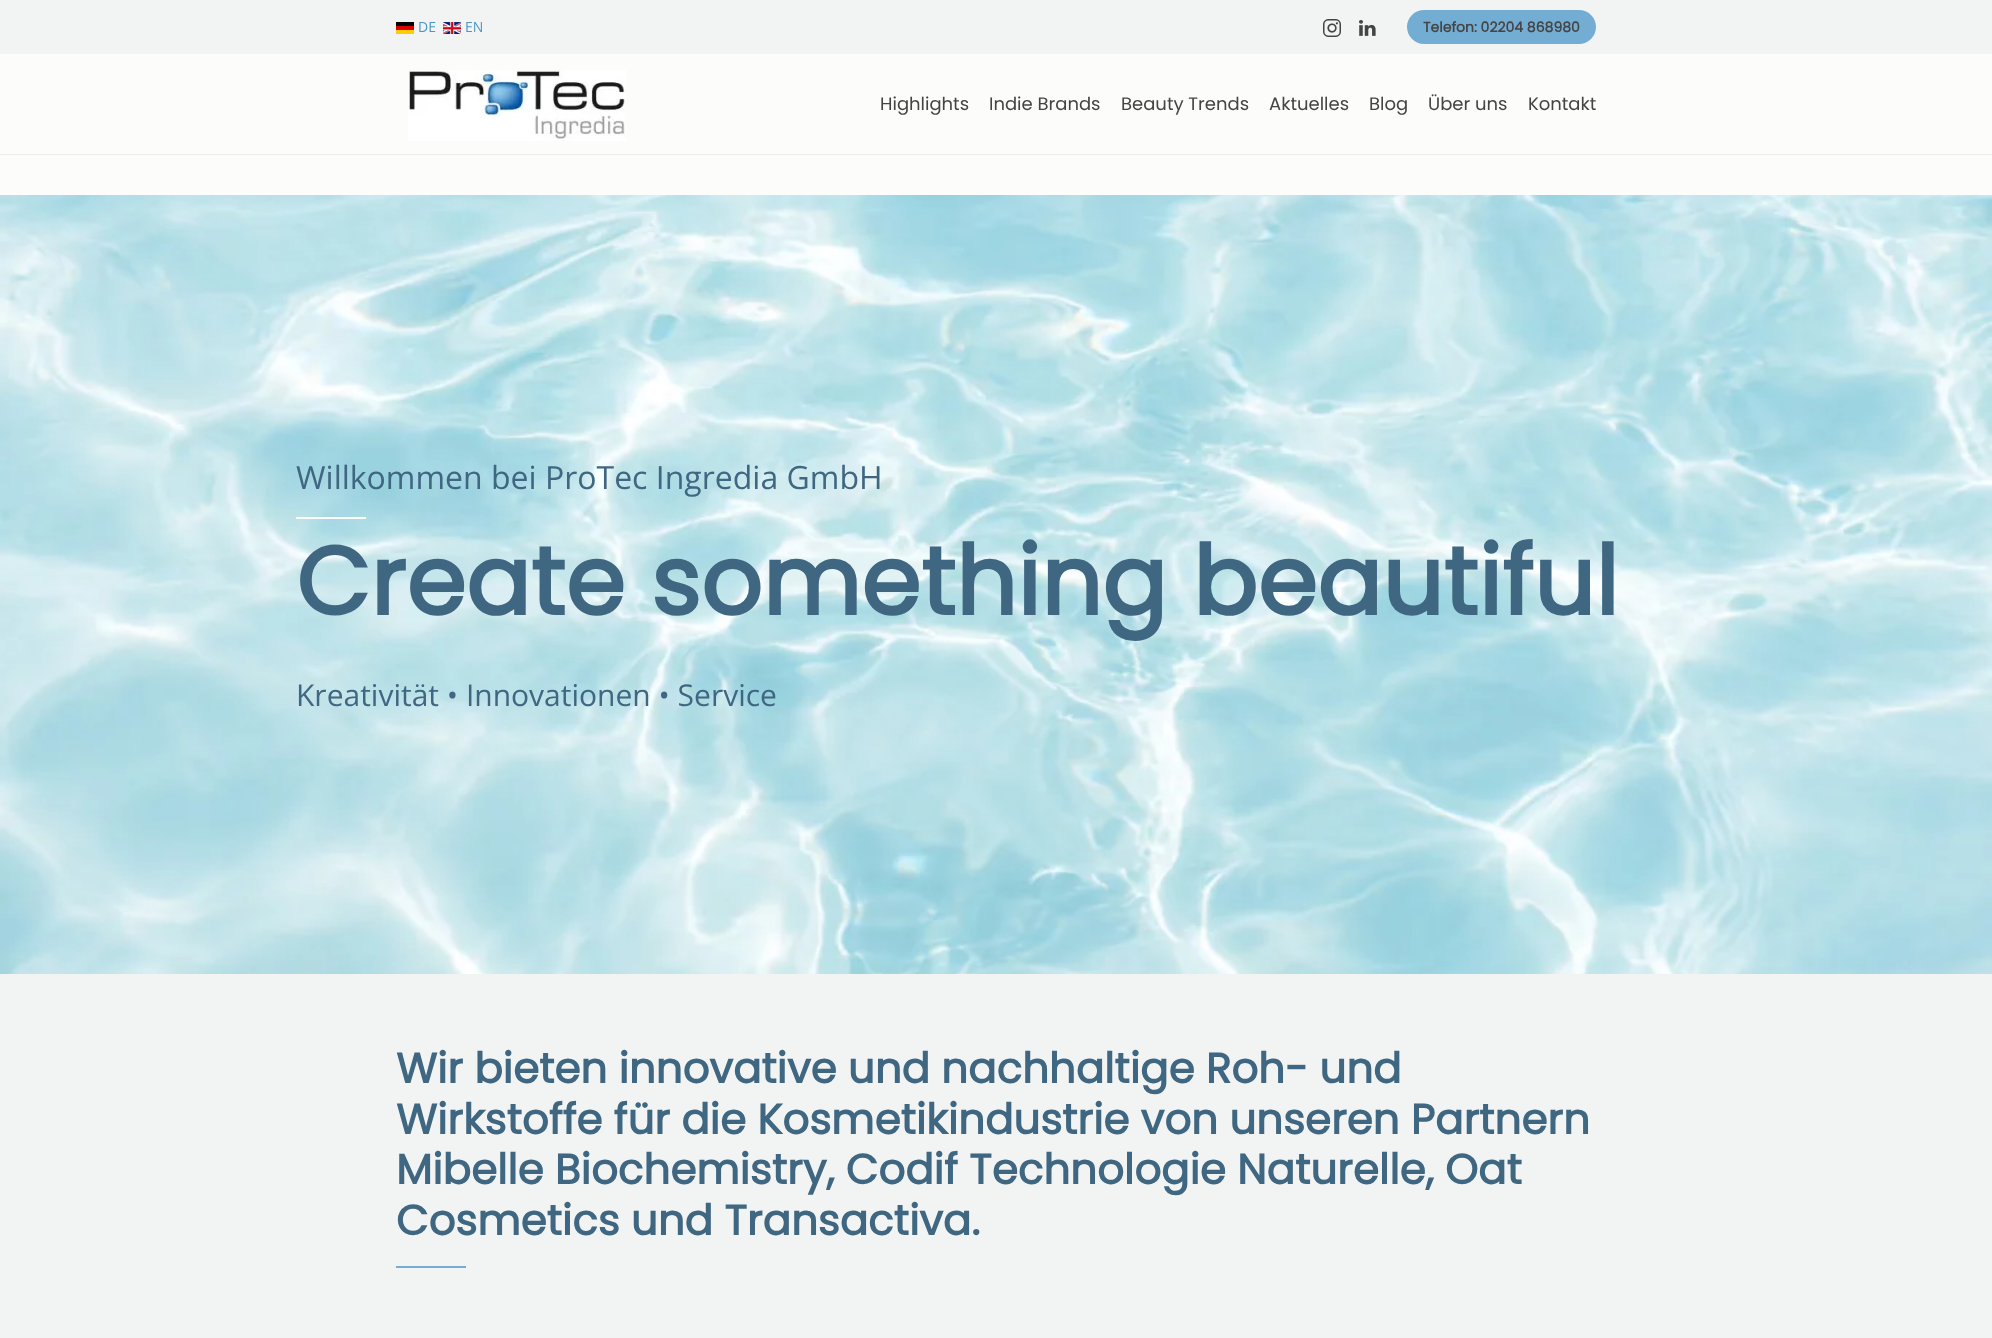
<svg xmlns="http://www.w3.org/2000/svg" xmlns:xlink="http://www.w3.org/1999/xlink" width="1992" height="1338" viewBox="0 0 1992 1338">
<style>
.cls-1{font:14px Open Sans;fill:#4d96c7}
.cls-2{font:bold 14px Poppins;fill:#444444}
.cls-3{font:18px Poppins;fill:#444444}
.cls-4{font:32px Open Sans;fill:#406781}
.cls-5{font:bold 96px Poppins;fill:#406781}
.cls-6{font:30px Open Sans;fill:#406781}
.cls-7{font:bold 42px Poppins;fill:#406781}
</style>
<rect width="100%" height="100%" fill="#fcfcfb"/>
<rect fill="#f2f4f4" x="0" y="0" width="1992" height="54"/>
<image xlink:href="image0.png" x="396" y="22" width="18" height="12"/>
<image xlink:href="image1.png" x="443" y="22" width="18" height="12"/>
<image xlink:href="image2.png" x="1323" y="19" width="18" height="18"/>
<image xlink:href="image3.png" x="1359" y="20" width="17" height="16"/>
<rect fill="#74add3" x="1407" y="10" width="189" height="34" rx="17"/>
<rect fill="#ebebed" x="0" y="154" width="1992" height="1"/>
<image xlink:href="image4.png" x="408" y="70" width="218" height="71"/>
<image xlink:href="image5.png" x="0" y="195" width="1992" height="779"/>
<rect fill="#fcfcfb" x="296" y="517" width="70" height="2"/>
<rect fill="#f2f4f4" x="0" y="974" width="1992" height="364"/>
<rect fill="#74add3" x="396" y="1266" width="70" height="2"/>
<text class="cls-1" x="418" y="32">DE</text>
<text class="cls-1" x="465" y="32">EN</text>
<text class="cls-2" x="1423" y="32">Telefon: 02204 868980</text>
<text class="cls-3" x="880" y="110">Highlights</text>
<text class="cls-3" x="989" y="110">Indie Brands</text>
<text class="cls-3" x="1121" y="110">Beauty Trends</text>
<text class="cls-3" x="1269" y="110">Aktuelles</text>
<text class="cls-3" x="1369" y="110">Blog</text>
<text class="cls-3" x="1428" y="110">Über uns</text>
<text class="cls-3" x="1528" y="110">Kontakt</text>
<text class="cls-4" x="296" y="489">Willkommen bei ProTec Ingredia GmbH</text>
<text class="cls-5" x="296" y="615">Create something beautiful</text>
<text class="cls-6" x="296" y="706">Kreativität • Innovationen • Service</text>
<text class="cls-7"><tspan x="396" y="1083">Wir bieten innovative und nachhaltige Roh- und</tspan><tspan x="396" y="1134">Wirkstoffe für die Kosmetikindustrie von unseren Partnern</tspan><tspan x="396" y="1184">Mibelle Biochemistry, Codif Technologie Naturelle, Oat</tspan><tspan x="396" y="1235">Cosmetics und Transactiva.</tspan></text>
</svg>
